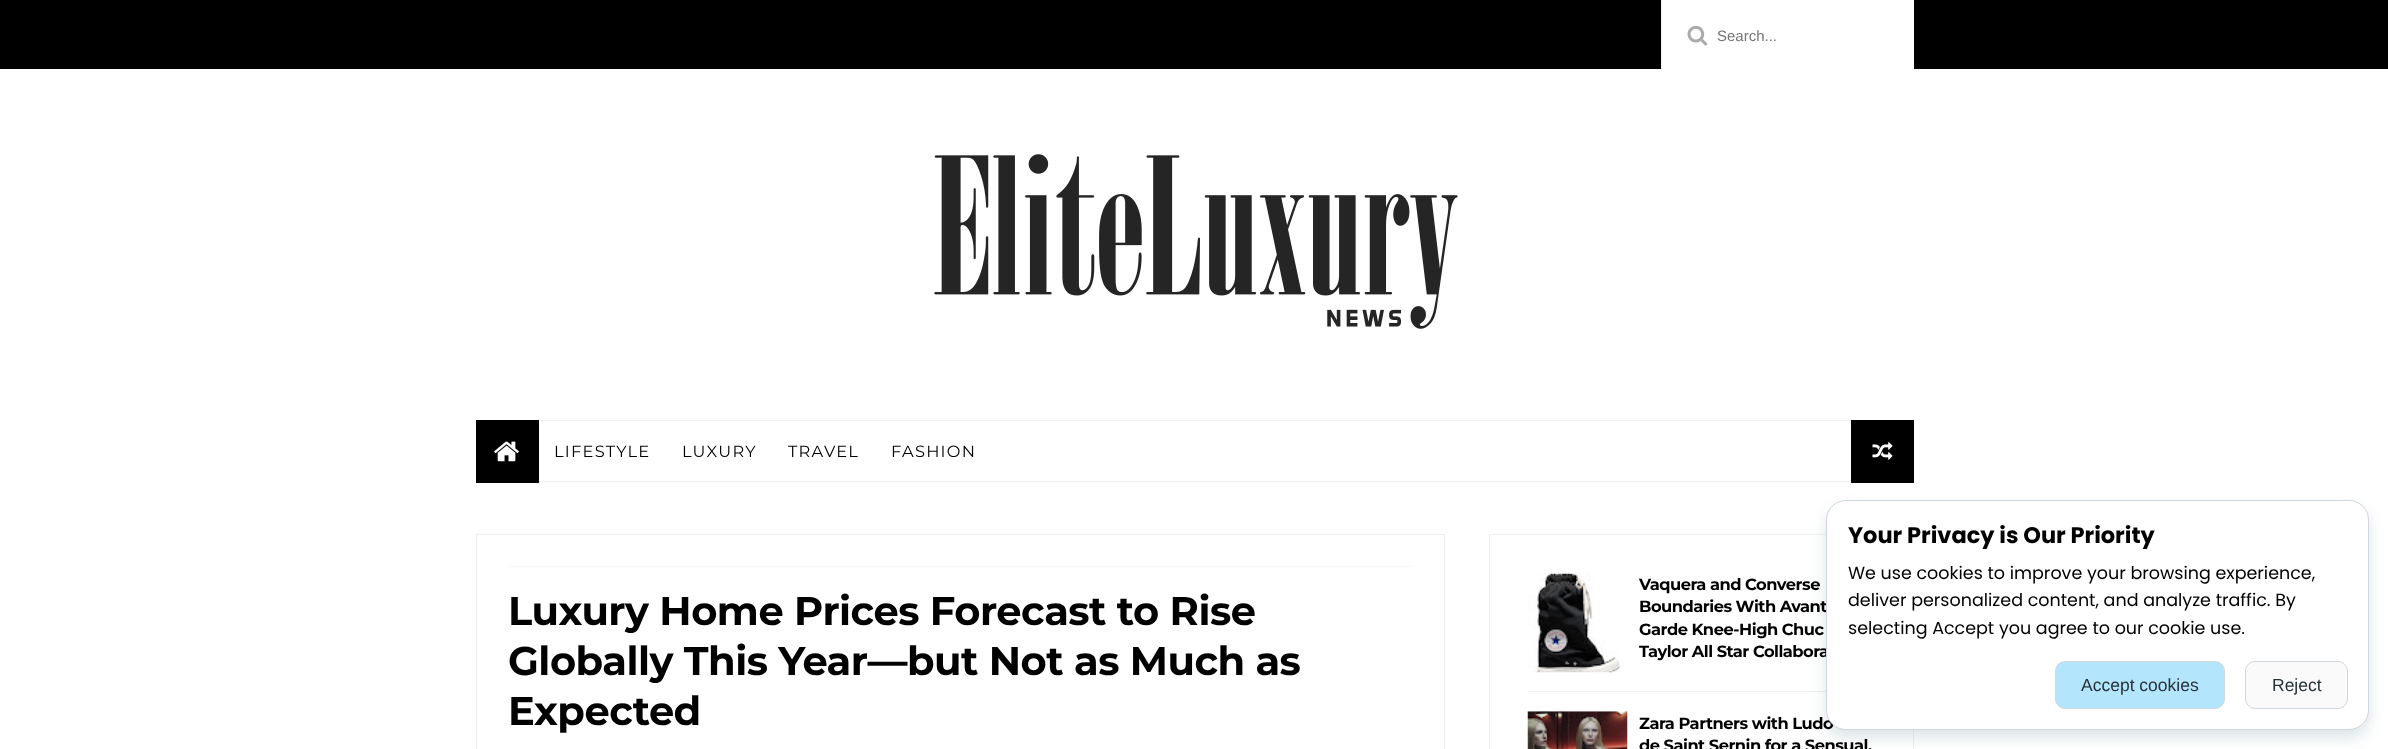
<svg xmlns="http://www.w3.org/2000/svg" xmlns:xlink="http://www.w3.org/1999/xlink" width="2388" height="749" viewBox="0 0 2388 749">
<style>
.cls-1{font:15px Liberation Sans;fill:#757575}
.cls-2{font:16.25px Montserrat;letter-spacing:1.25px;fill:#000000}
.cls-3{font:bold 40px Montserrat;letter-spacing:-0.5px;fill:#000000}
.cls-4{font:bold 16.25px Montserrat;letter-spacing:-0.5px;fill:#000000}
.cls-5{font:bold 22.5px Poppins;fill:#000000}
.cls-6{font:17.5px Poppins;fill:#000000}
.cls-7{font:17.5px Liberation Sans;fill:#263238}
</style>
<rect width="100%" height="100%" fill="#ffffff"/>
<rect fill="#000000" x="0" y="0" width="2388" height="69"/>
<rect fill="#ffffff" x="1662" y="0" width="252" height="69"/>
<rect fill="#f0f0f0" x="1661" y="0" width="1" height="69"/>
<image xlink:href="image0.png" x="1687" y="25" width="21" height="21"/>
<image xlink:href="image1.png" x="934" y="154" width="524" height="175"/>
<rect fill="#eeeeee" x="539" y="420" width="1312" height="1"/>
<rect fill="#eeeeee" x="539" y="481" width="1312" height="1"/>
<rect fill="#000000" x="476" y="420" width="63" height="63"/>
<image xlink:href="image2.png" x="494" y="441" width="25" height="21"/>
<rect fill="#000000" x="1851" y="420" width="63" height="63"/>
<image xlink:href="image3.png" x="1872" y="442" width="21" height="18"/>
<rect fill="none" stroke="#eeeeee" x="476.5" y="534.5" width="968" height="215"/>
<rect fill="#f8f8f8" x="509" y="566" width="904" height="1"/>
<rect fill="none" stroke="#eeeeee" x="1489.5" y="534.5" width="424" height="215"/>
<image xlink:href="image4.png" x="1528" y="572" width="98" height="101"/>
<rect fill="#eeeeee" x="1528" y="691" width="298" height="1"/>
<image xlink:href="image5.png" x="1527" y="711" width="101" height="38"/>
<rect fill="#90a4ae" fill-opacity="0.3" filter="blur(7.5px)" x="1826" y="508" width="543" height="230" rx="20"/>
<text class="cls-1" x="1717" y="41">Search...</text>
<text class="cls-2" x="554" y="457">LIFESTYLE</text>
<text class="cls-2" x="682" y="457">LUXURY</text>
<text class="cls-2" x="788" y="457">TRAVEL</text>
<text class="cls-2" x="891" y="457">FASHION</text>
<text class="cls-3"><tspan x="508" y="625">Luxury Home Prices Forecast to Rise</tspan><tspan x="508" y="675">Globally This Year—but Not as Much as</tspan><tspan x="508" y="725">Expected</tspan></text>
<text class="cls-4"><tspan x="1639" y="590">Vaquera and Converse</tspan><tspan x="1639" y="612">Boundaries With Avant</tspan><tspan x="1639" y="635">Garde Knee-High Chuc</tspan><tspan x="1639" y="657">Taylor All Star Collabora</tspan></text>
<text class="cls-4"><tspan x="1639" y="729">Zara Partners with Ludo</tspan><tspan x="1639" y="751">de Saint Sernin for a Sensual,</tspan></text>
<rect fill="#ffffff" stroke="#cfd8dc" x="1826.5" y="500.5" width="542" height="229" rx="19.5"/>
<text class="cls-5" x="1848" y="543">Your Privacy is Our Priority</text>
<text class="cls-6"><tspan x="1848" y="579">We use cookies to improve your browsing experience,</tspan><tspan x="1848" y="606">deliver personalized content, and analyze traffic. By</tspan><tspan x="1848" y="634">selecting Accept you agree to our cookie use.</tspan></text>
<rect fill="#b3e5fc" stroke="#cfd8dc" x="2055.5" y="661.5" width="169" height="47" rx="9.5"/>
<text class="cls-7" x="2081" y="691">Accept cookies</text>
<rect fill="#fafafa" stroke="#cfd8dc" x="2245.5" y="661.5" width="102" height="47" rx="9.5"/>
<text class="cls-7" x="2272" y="691">Reject</text>
</svg>
